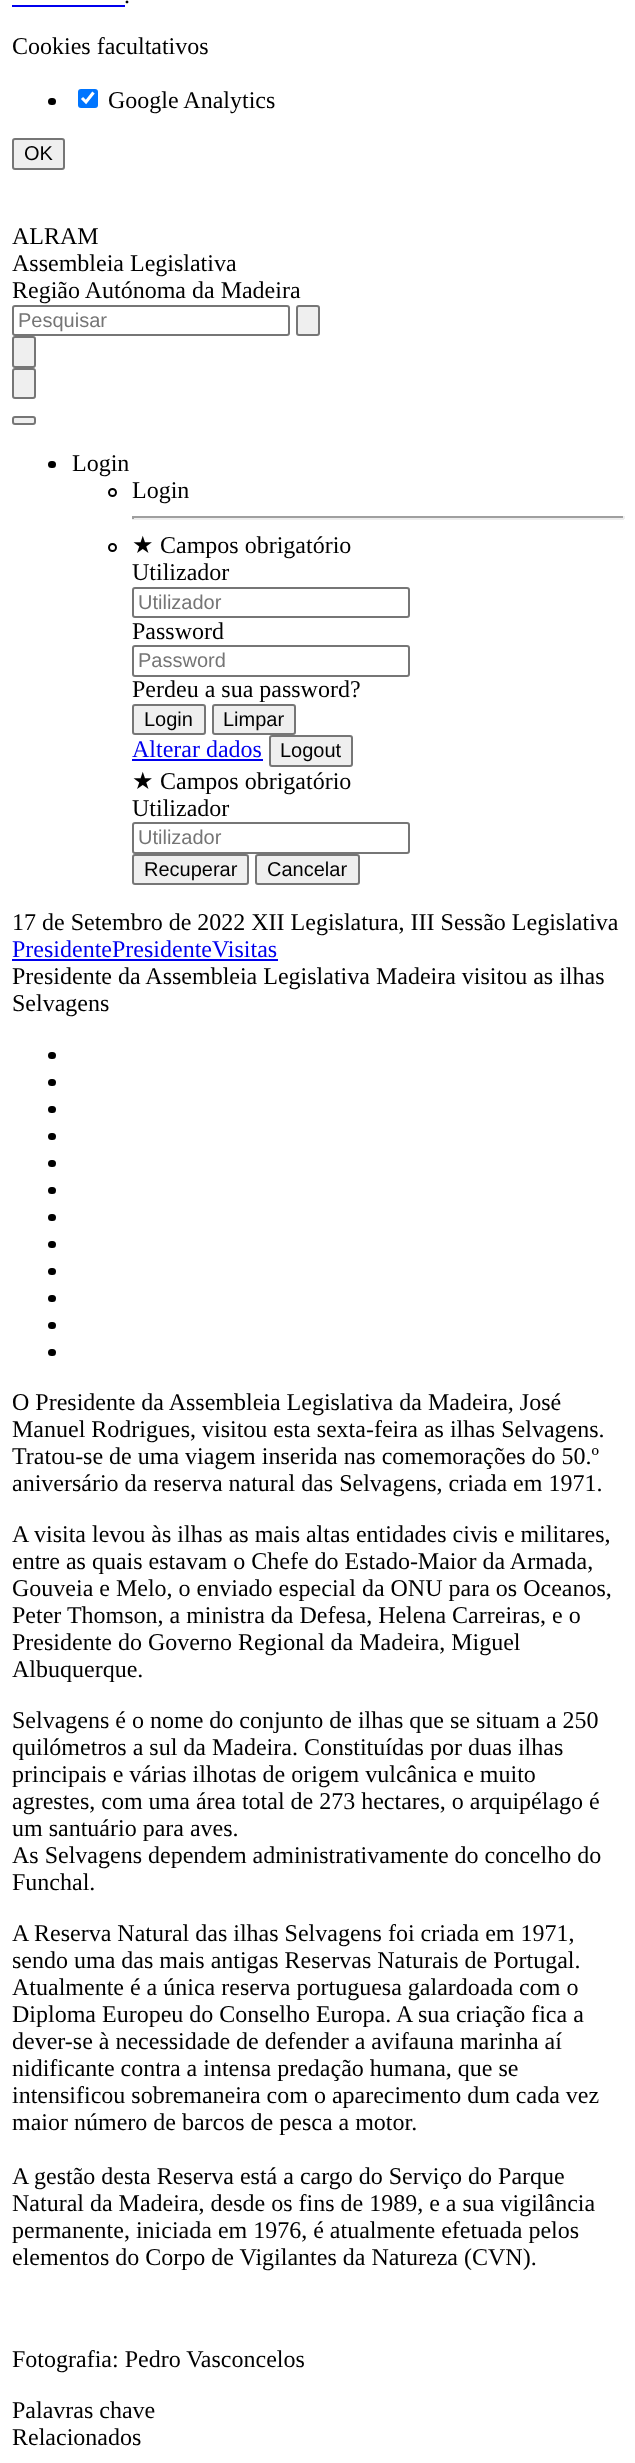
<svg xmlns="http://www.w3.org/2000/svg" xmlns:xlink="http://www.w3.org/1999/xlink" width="635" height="2463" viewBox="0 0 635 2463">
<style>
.cls-1{font:24px Liberation Serif;fill:#000000}
.cls-2{font:20px Liberation Sans;fill:#000000}
.cls-3{font:20px Liberation Sans;fill:#757575}
.cls-4{font:24px DejaVu Sans;fill:#000000}
.cls-5{font:24px Liberation Serif;fill:#0000ee}
</style>
<rect width="100%" height="100%" fill="#ffffff"/>
<rect fill="#0000ee" x="12" y="5" width="113" height="2"/>
<rect fill="#000000" x="48" y="98" width="8" height="7" rx="3.5"/>
<rect fill="#0075ff" x="78" y="89" width="20" height="19" rx="3"/>
<path fill="none" stroke="#ffffff" stroke-width="3.1" d="M82 98L86 102L93.5 92.5"/>
<rect fill="#efefef" stroke="#767676" stroke-width="2" x="13" y="139" width="51" height="30" rx="2"/>
<rect fill="none" stroke="#767676" stroke-width="2" x="13" y="306" width="276" height="29" rx="2"/>
<rect fill="#efefef" stroke="#767676" stroke-width="2" x="297" y="306" width="22" height="29" rx="2"/>
<rect fill="#efefef" stroke="#767676" stroke-width="2" x="13" y="337" width="22" height="30" rx="2"/>
<rect fill="#efefef" stroke="#767676" stroke-width="2" x="13" y="369" width="22" height="29" rx="2"/>
<rect fill="#efefef" stroke="#767676" stroke-width="2" x="13" y="417" width="22" height="7" rx="2"/>
<rect fill="#000000" x="48" y="461" width="8" height="7" rx="3.5"/>
<circle fill="none" stroke="#000000" stroke-width="2" cx="112.5" cy="492.5" r="3.5"/>
<rect fill="#9f9f9f" x="132" y="516" width="492" height="2"/>
<rect fill="#eeeeee" x="623" y="516" width="2" height="3"/>
<rect fill="#eeeeee" x="132" y="518" width="492" height="2"/>
<rect fill="#9f9f9f" x="132" y="516" width="2" height="3"/>
<circle fill="none" stroke="#000000" stroke-width="2" cx="112.5" cy="547.5" r="3.5"/>
<rect fill="none" stroke="#767676" stroke-width="2" x="133" y="588" width="276" height="29" rx="2"/>
<rect fill="none" stroke="#767676" stroke-width="2" x="133" y="646" width="276" height="30" rx="2"/>
<rect fill="#efefef" stroke="#767676" stroke-width="2" x="133" y="705" width="72" height="29" rx="2"/>
<rect fill="#efefef" stroke="#767676" stroke-width="2" x="213" y="705" width="82" height="29" rx="2"/>
<rect fill="#0000ee" x="132" y="759" width="131" height="2"/>
<rect fill="#efefef" stroke="#767676" stroke-width="2" x="270" y="736" width="82" height="30" rx="2"/>
<rect fill="none" stroke="#767676" stroke-width="2" x="133" y="823" width="276" height="30" rx="2"/>
<rect fill="#efefef" stroke="#767676" stroke-width="2" x="133" y="855" width="115" height="29" rx="2"/>
<rect fill="#efefef" stroke="#767676" stroke-width="2" x="256" y="855" width="103" height="29" rx="2"/>
<rect fill="#0000ee" x="12" y="959" width="266" height="2"/>
<rect fill="#000000" x="48" y="1052" width="8" height="7" rx="3.5"/>
<rect fill="#000000" x="48" y="1079" width="8" height="7" rx="3.5"/>
<rect fill="#000000" x="48" y="1106" width="8" height="7" rx="3.5"/>
<rect fill="#000000" x="48" y="1133" width="8" height="7" rx="3.5"/>
<rect fill="#000000" x="48" y="1160" width="8" height="7" rx="3.5"/>
<rect fill="#000000" x="48" y="1187" width="8" height="7" rx="3.5"/>
<rect fill="#000000" x="48" y="1214" width="8" height="7" rx="3.5"/>
<rect fill="#000000" x="48" y="1241" width="8" height="7" rx="3.5"/>
<rect fill="#000000" x="48" y="1268" width="8" height="7" rx="3.5"/>
<rect fill="#000000" x="48" y="1295" width="8" height="7" rx="3.5"/>
<rect fill="#000000" x="48" y="1322" width="8" height="7" rx="3.5"/>
<rect fill="#000000" x="48" y="1349" width="8" height="7" rx="3.5"/>
<text class="cls-1" x="124" y="3">.</text>
<text class="cls-1" x="12" y="54">Cookies facultativos</text>
<text class="cls-1" x="108" y="108">Google Analytics</text>
<text class="cls-2" x="24" y="160">OK</text>
<text class="cls-1"><tspan x="12" y="244">ALRAM</tspan><tspan x="12" y="271">Assembleia Legislativa</tspan><tspan x="12" y="298">Região Autónoma da Madeira</tspan></text>
<text class="cls-3" x="18" y="327">Pesquisar</text>
<text class="cls-1" x="72" y="471">Login</text>
<text class="cls-1" x="132" y="498">Login</text>
<text class="cls-4" x="132" y="553">★</text>
<text class="cls-1" x="160" y="553">Campos obrigatório</text>
<text class="cls-1" x="132" y="580">Utilizador</text>
<text class="cls-3" x="138" y="609">Utilizador</text>
<text class="cls-1" x="132" y="639">Password</text>
<text class="cls-3" x="138" y="667">Password</text>
<text class="cls-1" x="132" y="697">Perdeu a sua password?</text>
<text class="cls-2" x="144" y="726">Login</text>
<text class="cls-2" x="223" y="726">Limpar</text>
<text class="cls-5" x="132" y="757">Alterar dados</text>
<text class="cls-2" x="280" y="757">Logout</text>
<text class="cls-4" x="132" y="789">★</text>
<text class="cls-1" x="160" y="789">Campos obrigatório</text>
<text class="cls-1" x="132" y="816">Utilizador</text>
<text class="cls-3" x="138" y="844">Utilizador</text>
<text class="cls-2" x="144" y="876">Recuperar</text>
<text class="cls-2" x="267" y="876">Cancelar</text>
<text class="cls-1" x="12" y="930">17 de Setembro de 2022 XII Legislatura, III Sessão Legislativa</text>
<text class="cls-5" x="12" y="957">PresidentePresidenteVisitas</text>
<text class="cls-1"><tspan x="12" y="984">Presidente da Assembleia Legislativa Madeira visitou as ilhas</tspan><tspan x="12" y="1011">Selvagens</tspan></text>
<text class="cls-1"><tspan x="12" y="1410">O Presidente da Assembleia Legislativa da Madeira, José</tspan><tspan x="12" y="1437">Manuel Rodrigues, visitou esta sexta-feira as ilhas Selvagens.</tspan><tspan x="12" y="1464">Tratou-se de uma viagem inserida nas comemorações do 50.º</tspan><tspan x="12" y="1491">aniversário da reserva natural das Selvagens, criada em 1971.</tspan></text>
<text class="cls-1"><tspan x="12" y="1542">A visita levou às ilhas as mais altas entidades civis e militares,</tspan><tspan x="12" y="1569">entre as quais estavam o Chefe do Estado-Maior da Armada,</tspan><tspan x="12" y="1596">Gouveia e Melo, o enviado especial da ONU para os Oceanos,</tspan><tspan x="12" y="1623">Peter Thomson, a ministra da Defesa, Helena Carreiras, e o</tspan><tspan x="12" y="1650">Presidente do Governo Regional da Madeira, Miguel</tspan><tspan x="12" y="1677">Albuquerque.</tspan></text>
<text class="cls-1"><tspan x="12" y="1728">Selvagens é o nome do conjunto de ilhas que se situam a 250</tspan><tspan x="12" y="1755">quilómetros a sul da Madeira. Constituídas por duas ilhas</tspan><tspan x="12" y="1782">principais e várias ilhotas de origem vulcânica e muito</tspan><tspan x="12" y="1809">agrestes, com uma área total de 273 hectares, o arquipélago é</tspan><tspan x="12" y="1836">um santuário para aves.</tspan><tspan x="12" y="1863">As Selvagens dependem administrativamente do concelho do</tspan><tspan x="12" y="1890">Funchal.</tspan></text>
<text class="cls-1"><tspan x="12" y="1941">A Reserva Natural das ilhas Selvagens foi criada em 1971,</tspan><tspan x="12" y="1968">sendo uma das mais antigas Reservas Naturais de Portugal.</tspan><tspan x="12" y="1995">Atualmente é a única reserva portuguesa galardoada com o</tspan><tspan x="12" y="2022">Diploma Europeu do Conselho Europa. A sua criação fica a</tspan><tspan x="12" y="2049">dever-se à necessidade de defender a avifauna marinha aí</tspan><tspan x="12" y="2076">nidificante contra a intensa predação humana, que se</tspan><tspan x="12" y="2103">intensificou sobremaneira com o aparecimento dum cada vez</tspan><tspan x="12" y="2130">maior número de barcos de pesca a motor.</tspan></text>
<text class="cls-1"><tspan x="12" y="2184">A gestão desta Reserva está a cargo do Serviço do Parque</tspan><tspan x="12" y="2211">Natural da Madeira, desde os fins de 1989, e a sua vigilância</tspan><tspan x="12" y="2238">permanente, iniciada em 1976, é atualmente efetuada pelos</tspan><tspan x="12" y="2265">elementos do Corpo de Vigilantes da Natureza (CVN).</tspan></text>
<text class="cls-1" x="12" y="2367">Fotografia: Pedro Vasconcelos</text>
<text class="cls-1"><tspan x="12" y="2418">Palavras chave</tspan><tspan x="12" y="2445">Relacionados</tspan></text>
</svg>
